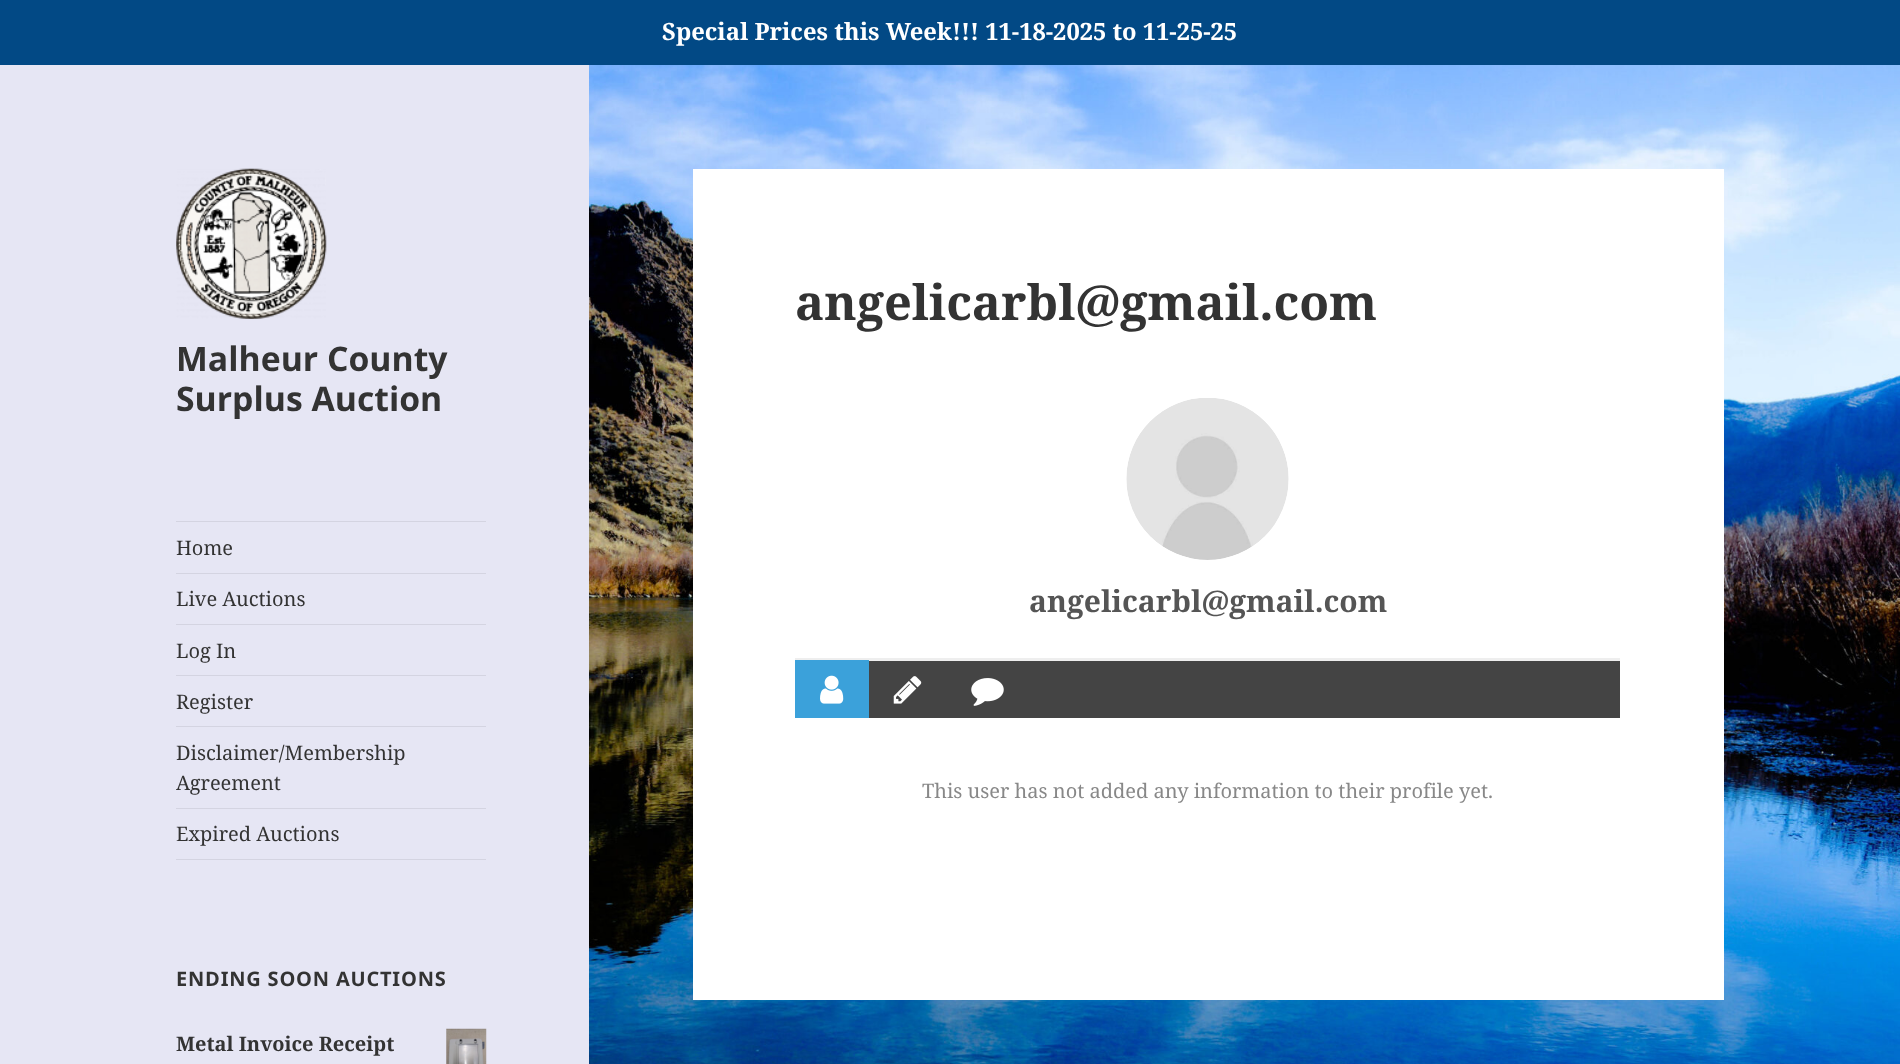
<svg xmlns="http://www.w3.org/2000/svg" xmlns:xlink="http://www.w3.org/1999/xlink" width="1900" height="1064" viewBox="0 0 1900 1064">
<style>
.cls-1{font:bold 23.75px Noto Serif;fill:#ffffff}
.cls-2{font:bold 33.75px Noto Sans;fill:#333333}
.cls-3{font:20px Noto Serif;fill:#333333}
.cls-4{font:bold 20px Noto Sans;letter-spacing:0.8px;fill:#333333}
.cls-5{font:bold 20px Noto Serif;fill:#333333}
.cls-6{font:bold 48.75px Noto Serif;fill:#333333}
.cls-7{font:bold 30px Noto Serif;fill:#555555}
.cls-8{font:20px Noto Serif;fill:#888888}
</style>
<rect width="100%" height="100%" fill="#ffffff"/>
<image xlink:href="image0.png" x="589" y="65" width="1311" height="999"/>
<rect fill="#024985" x="0" y="0" width="1900" height="65"/>
<rect fill="#e6e6f4" x="0" y="65" width="589" height="999"/>
<image xlink:href="image1.png" x="176" y="168" width="151" height="151"/>
<rect fill="#d4d4e1" x="176" y="521" width="310" height="1"/>
<rect fill="#d4d4e1" x="176" y="859" width="310" height="1"/>
<rect fill="#d4d4e1" x="176" y="573" width="310" height="1"/>
<rect fill="#d4d4e1" x="176" y="624" width="310" height="1"/>
<rect fill="#d4d4e1" x="176" y="675" width="310" height="1"/>
<rect fill="#d4d4e1" x="176" y="726" width="310" height="1"/>
<rect fill="#d4d4e1" x="176" y="808" width="310" height="1"/>
<image xlink:href="image2.png" x="446" y="1028" width="41" height="36"/>
<rect fill="#ffffff" x="693" y="169" width="1031" height="831"/>
<rect fill="#eeeeee" x="795" y="658" width="825" height="3"/>
<image xlink:href="image3.png" x="1126" y="398" width="163" height="162"/>
<rect fill="#444444" x="869" y="661" width="751" height="57"/>
<rect fill="#3ba1da" x="795" y="660" width="74" height="58"/>
<image xlink:href="image4.png" x="820" y="675" width="24" height="29"/>
<image xlink:href="image5.png" x="893" y="676" width="29" height="28"/>
<image xlink:href="image6.png" x="971" y="678" width="33" height="28"/>
<text class="cls-1" x="662" y="40">Special Prices this Week!!! 11-18-2025 to 11-25-25</text>
<text class="cls-2"><tspan x="176" y="371">Malheur County</tspan><tspan x="176" y="411">Surplus Auction</tspan></text>
<text class="cls-3" x="176" y="555">Home</text>
<text class="cls-3" x="176" y="606">Live Auctions</text>
<text class="cls-3" x="176" y="658">Log In</text>
<text class="cls-3" x="176" y="709">Register</text>
<text class="cls-3"><tspan x="176" y="760">Disclaimer/Membership</tspan><tspan x="176" y="790">Agreement</tspan></text>
<text class="cls-3" x="176" y="841">Expired Auctions</text>
<text class="cls-4" x="176" y="986">ENDING SOON AUCTIONS</text>
<text class="cls-5" x="176" y="1051">Metal Invoice Receipt</text>
<text class="cls-6" x="795" y="320">angelicarbl@gmail.com</text>
<text class="cls-7" x="1029" y="612">angelicarbl@gmail.com</text>
<text class="cls-8" x="922" y="798">This user has not added any information to their profile yet.</text>
</svg>
